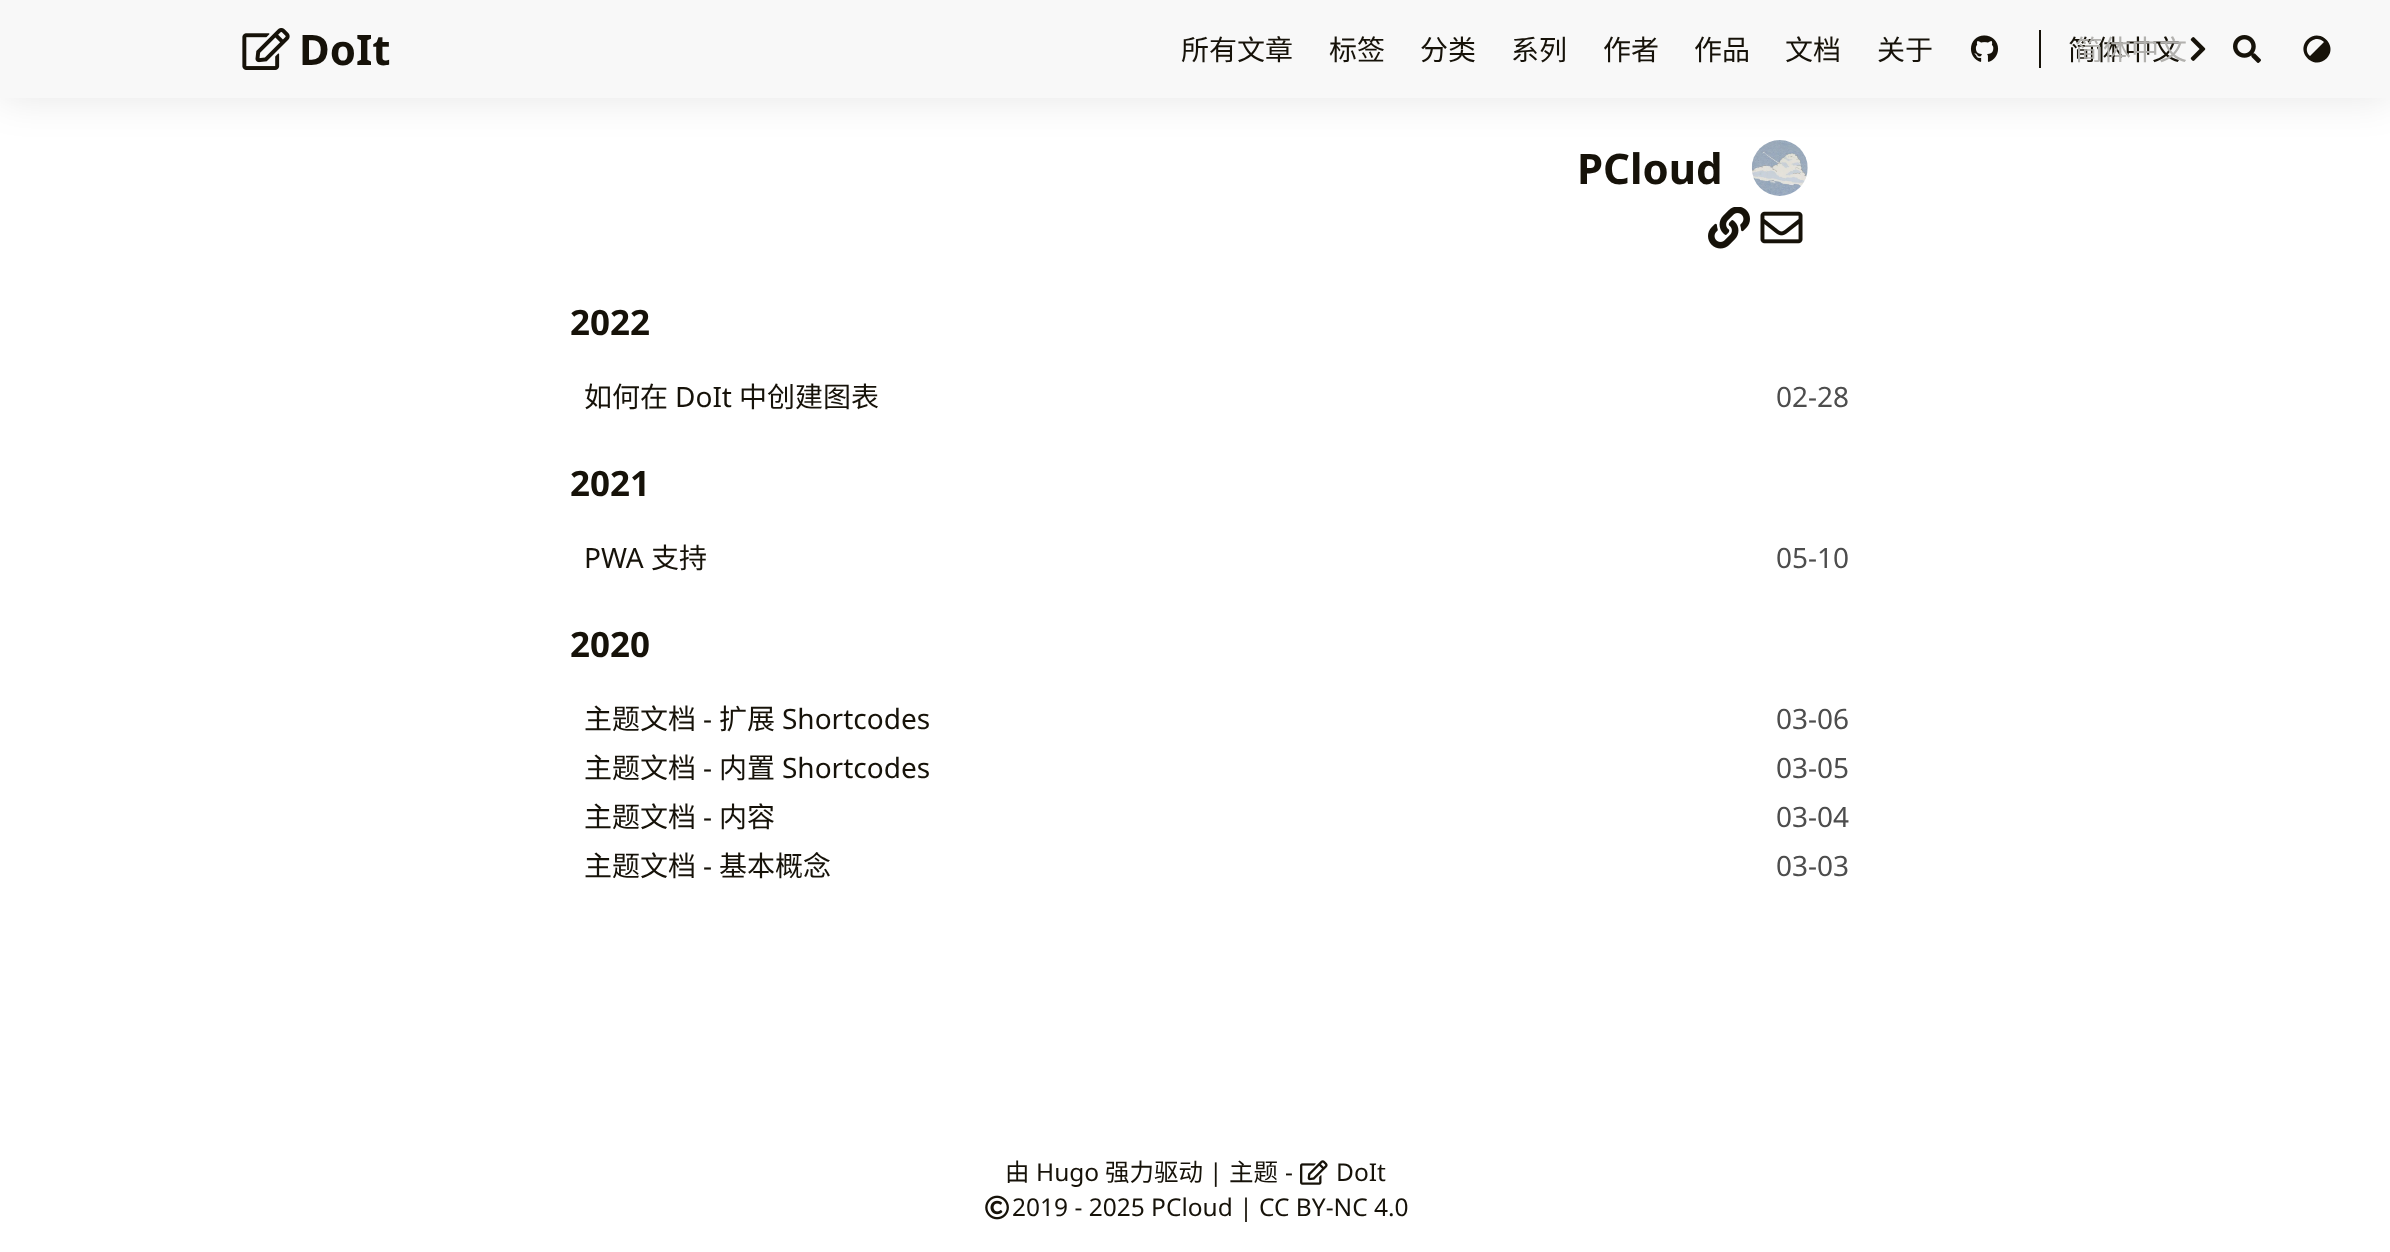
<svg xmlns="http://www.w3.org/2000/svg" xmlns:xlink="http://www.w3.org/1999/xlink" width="2390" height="1252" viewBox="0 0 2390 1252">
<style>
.cls-1{font:bold 42px Noto Sans;fill:#161209}
.cls-2{font:28px Noto Sans CJK SC;fill:#161209}
.cls-3{font:28px Noto Sans CJK SC;fill:#b2b1ae}
.cls-4{font:bold 35px Noto Sans;fill:#161209}
.cls-5{font:28px Noto Sans;fill:#161209}
.cls-6{font:28px Noto Sans;fill:#4d4d4d}
.cls-7{font:24.5px Noto Sans CJK SC;fill:#161209}
.cls-8{font:24.5px Noto Sans;fill:#161209}
</style>
<rect width="100%" height="100%" fill="#ffffff"/>
<image xlink:href="image4.png" x="1751" y="140" width="57" height="56"/>
<rect fill="#000000" fill-opacity="0.1" filter="blur(21px)" x="0" y="0" width="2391" height="98"/>
<rect fill="#f8f8f8" x="0" y="0" width="2390" height="98"/>
<image xlink:href="image0.png" x="242" y="28" width="48" height="42"/>
<image xlink:href="image1.png" x="1970" y="35" width="29" height="27"/>
<rect fill="#161209" x="2039" y="30" width="2" height="38"/>
<image xlink:href="image2.png" x="2190" y="37" width="16" height="24"/>
<image xlink:href="image3.png" x="2233" y="35" width="28" height="28"/>
<path fill="#161209" d="M2326.5 58.5C2339 46 2320 27 2307.5 39.5C2295 52 2314 71 2326.5 58.5ZM2324 42L2310 56C2300.5 47 2315 32.5 2324 42Z"/>
<image xlink:href="image5.png" x="1708" y="207" width="42" height="42"/>
<image xlink:href="image6.png" x="1760" y="211" width="43" height="33"/>
<image xlink:href="image7.png" x="1300" y="1160" width="28" height="25"/>
<image xlink:href="image8.png" x="985" y="1195" width="24" height="25"/>
<text class="cls-1" x="299" y="65">DoIt</text>
<text class="cls-2" x="1181" y="60">所有文章</text>
<text class="cls-2" x="1329" y="60">标签</text>
<text class="cls-2" x="1420" y="60">分类</text>
<text class="cls-2" x="1511" y="60">系列</text>
<text class="cls-2" x="1603" y="60">作者</text>
<text class="cls-2" x="1694" y="60">作品</text>
<text class="cls-2" x="1785" y="60">文档</text>
<text class="cls-2" x="1877" y="60">关于</text>
<text class="cls-2" x="2068" y="60">简体中文</text>
<text class="cls-3" x="2075" y="60">简体中文</text>
<text class="cls-1" x="1577" y="184">PCloud</text>
<text class="cls-4" x="570" y="335">2022</text>
<text class="cls-2" x="584" y="407">如何在</text>
<text class="cls-5" x="675" y="407">DoIt</text>
<text class="cls-2" x="739" y="407">中创建图表</text>
<text class="cls-6" x="1776" y="407">02-28</text>
<text class="cls-4" x="570" y="496">2021</text>
<text class="cls-5" x="584" y="568">PWA</text>
<text class="cls-2" x="651" y="568">支持</text>
<text class="cls-6" x="1776" y="568">05-10</text>
<text class="cls-4" x="570" y="657">2020</text>
<text class="cls-2" x="584" y="729">主题文档</text>
<text class="cls-5" x="703" y="729">-</text>
<text class="cls-2" x="719" y="729">扩展</text>
<text class="cls-5" x="782" y="729">Shortcodes</text>
<text class="cls-6" x="1776" y="729">03-06</text>
<text class="cls-2" x="584" y="778">主题文档</text>
<text class="cls-5" x="703" y="778">-</text>
<text class="cls-2" x="719" y="778">内置</text>
<text class="cls-5" x="782" y="778">Shortcodes</text>
<text class="cls-6" x="1776" y="778">03-05</text>
<text class="cls-2" x="584" y="827">主题文档</text>
<text class="cls-5" x="703" y="827">-</text>
<text class="cls-2" x="719" y="827">内容</text>
<text class="cls-6" x="1776" y="827">03-04</text>
<text class="cls-2" x="584" y="876">主题文档</text>
<text class="cls-5" x="703" y="876">-</text>
<text class="cls-2" x="719" y="876">基本概念</text>
<text class="cls-6" x="1776" y="876">03-03</text>
<text class="cls-7" x="1005" y="1181">由</text>
<text class="cls-8" x="1036" y="1181">Hugo</text>
<text class="cls-7" x="1105" y="1181">强力驱动</text>
<text class="cls-8" x="1209" y="1181">|</text>
<text class="cls-7" x="1229" y="1181">主题</text>
<text class="cls-8" x="1285" y="1181">-</text>
<text class="cls-8" x="1336" y="1181">DoIt</text>
<text class="cls-8" x="1012" y="1216">2019 - 2025 PCloud | CC BY-NC 4.0</text>
</svg>
